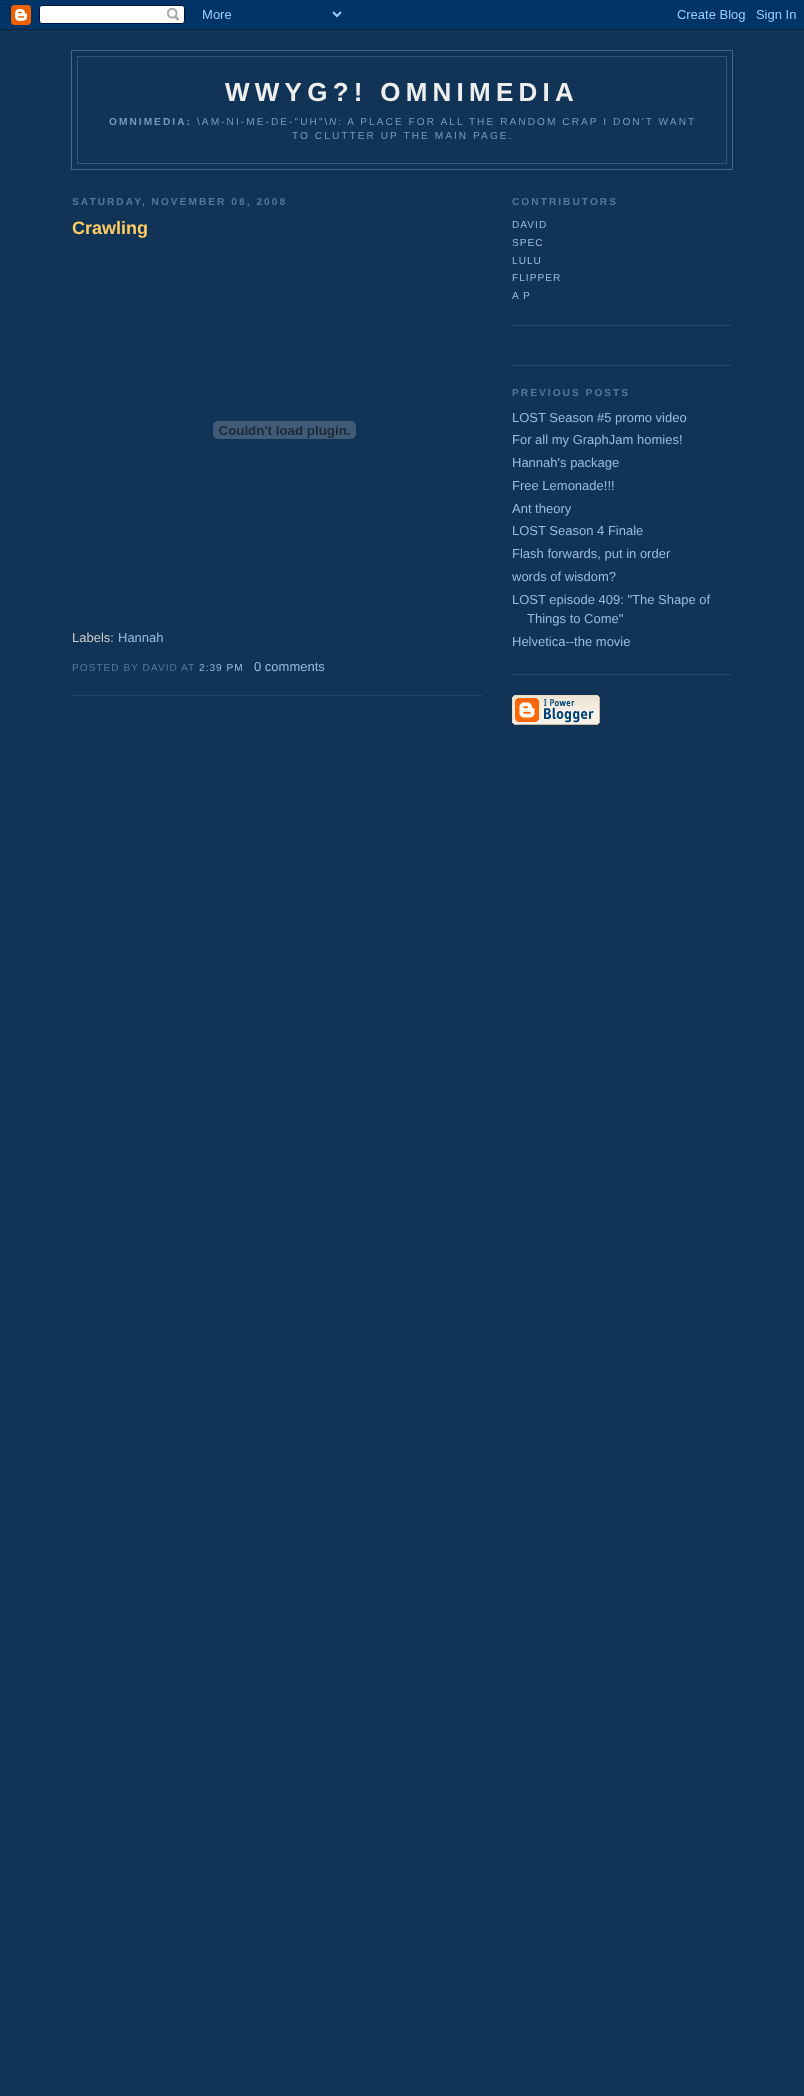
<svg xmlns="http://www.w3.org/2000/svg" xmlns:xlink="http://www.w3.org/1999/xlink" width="804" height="2096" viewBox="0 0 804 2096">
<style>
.cls-1{font:bold 26px Liberation Sans;letter-spacing:5.25px;fill:#eeeeee}
.cls-2{font:bold 10.15px Liberation Sans;letter-spacing:2.05px;fill:#7799bb}
.cls-3{font:10.15px Liberation Sans;letter-spacing:2.05px;fill:#7799bb}
.cls-4{font:italic 10.15px Liberation Sans;letter-spacing:2.05px;fill:#7799bb}
.cls-5{font:bold 10.15px Liberation Sans;letter-spacing:2.05px;fill:#557799}
.cls-6{font:bold 18px Liberation Sans;fill:#ffcc66}
.cls-7{font:13px Liberation Sans;fill:#cccccc}
.cls-8{font:13px Liberation Sans;fill:#99bbdd}
.cls-9{font:10.15px Liberation Sans;letter-spacing:1px;fill:#557799}
.cls-10{font:10.15px Liberation Sans;letter-spacing:1px;fill:#99bbdd}
</style>
<rect width="100%" height="100%" fill="#113355"/>
<image xlink:href="image0.png" x="0" y="0" width="804" height="30"/>
<rect fill="none" stroke="#446688" x="71.5" y="50.5" width="661" height="119"/>
<rect fill="#335577" x="77" y="56" width="650" height="1"/>
<rect fill="#335577" x="726" y="56" width="1" height="108"/>
<rect fill="#335577" x="77" y="56" width="1" height="59"/>
<rect fill="#335577" x="77" y="163" width="650" height="1"/>
<rect fill="#335577" x="77" y="115" width="1" height="49"/>
<path fill="none" stroke="#335577" stroke-dasharray="1 1" d="M72 695.5H482"/>
<image xlink:href="image1.png" x="213" y="421" width="143" height="18"/>
<path fill="none" stroke="#335577" stroke-dasharray="1 1" d="M512 365.5H732"/>
<path fill="none" stroke="#335577" stroke-dasharray="1 1" d="M512 325.5H732"/>
<path fill="none" stroke="#335577" stroke-dasharray="1 1" d="M512 674.5H732"/>
<image xlink:href="image2.png" x="512" y="695" width="88" height="30"/>
<text class="cls-1" x="225" y="101">WWYG?! OMNIMEDIA</text>
<text class="cls-2" x="109" y="125">OMNIMEDIA:</text>
<text class="cls-3" x="197" y="125">\AM-NI-ME-DE-"UH"\</text>
<text class="cls-4" x="329" y="125">N</text>
<text class="cls-3" x="338" y="125">: A PLACE FOR ALL THE RANDOM CRAP I DON'T WANT</text>
<text class="cls-3" x="292" y="139">TO CLUTTER UP THE MAIN PAGE.</text>
<text class="cls-5" x="72" y="205">SATURDAY, NOVEMBER 08, 2008</text>
<text class="cls-6" x="72" y="234">Crawling</text>
<text class="cls-7" x="72" y="642">Labels:</text>
<text class="cls-8" x="118" y="642">Hannah</text>
<text class="cls-9" x="72" y="671">POSTED BY DAVID AT</text>
<text class="cls-10" x="199" y="671">2:39 PM</text>
<text class="cls-8" x="254" y="671">0 comments</text>
<text class="cls-5" x="512" y="205">CONTRIBUTORS</text>
<text class="cls-10"><tspan x="512" y="228">DAVID</tspan><tspan x="512" y="246">SPEC</tspan><tspan x="512" y="264">LULU</tspan><tspan x="512" y="281">FLIPPER</tspan><tspan x="512" y="299">A P</tspan></text>
<text class="cls-5" x="512" y="396">PREVIOUS POSTS</text>
<text class="cls-8"><tspan x="512" y="422">LOST Season #5 promo video</tspan><tspan x="512" y="444">For all my GraphJam homies!</tspan><tspan x="512" y="467">Hannah's package</tspan><tspan x="512" y="490">Free Lemonade!!!</tspan><tspan x="512" y="513">Ant theory</tspan><tspan x="512" y="535">LOST Season 4 Finale</tspan><tspan x="512" y="558">Flash forwards, put in order</tspan><tspan x="512" y="581">words of wisdom?</tspan><tspan x="512" y="604">LOST episode 409: "The Shape of</tspan></text>
<text class="cls-8" x="527" y="623">Things to Come"</text>
<text class="cls-8" x="512" y="646">Helvetica--the movie</text>
</svg>
